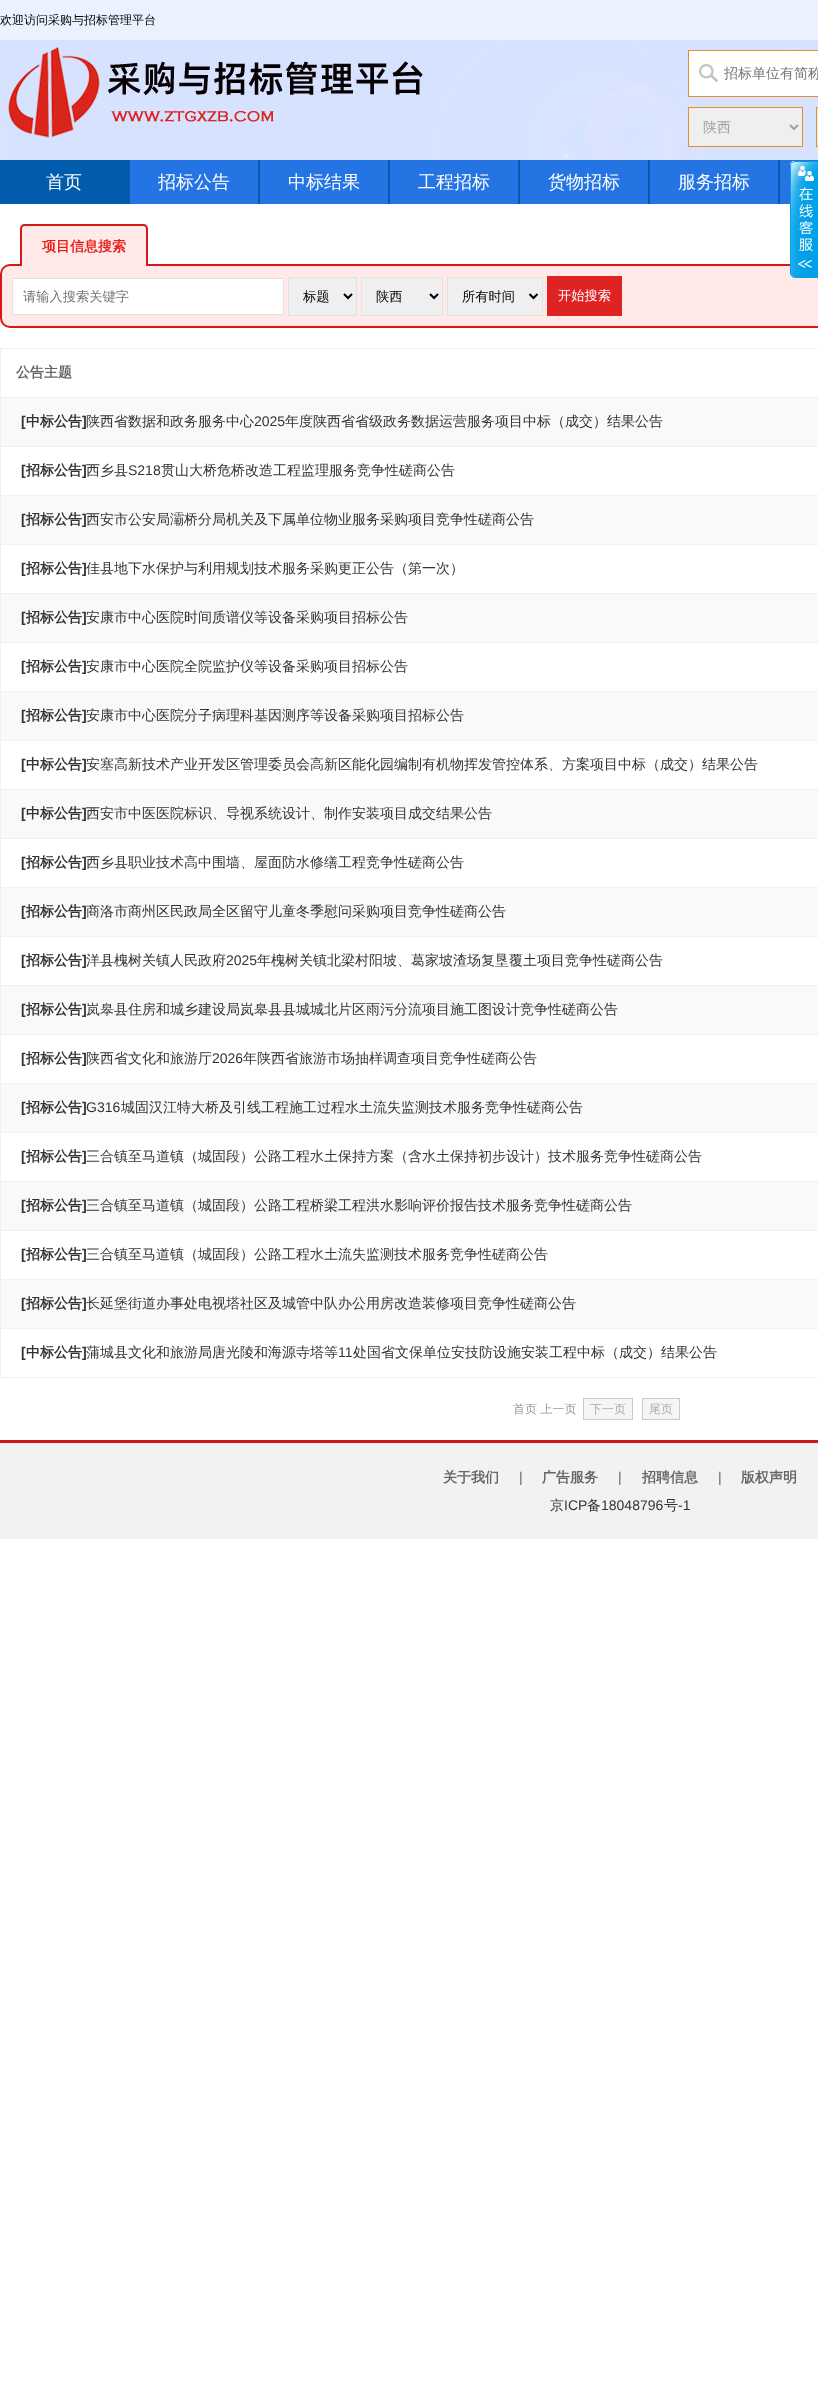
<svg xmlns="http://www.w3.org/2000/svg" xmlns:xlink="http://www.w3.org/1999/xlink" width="818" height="2406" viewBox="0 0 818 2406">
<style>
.cls-1{font:500 12px WenQuanYi Zen Hei;fill:#000000}
.cls-2{font:500 14px WenQuanYi Zen Hei;fill:#757575}
.cls-3{font:500 14px WenQuanYi Zen Hei;fill:#a1a1a1}
.cls-4{font:500 18px WenQuanYi Zen Hei;fill:#ffffff}
.cls-5{font:bold 14px WenQuanYi Zen Hei;fill:#e71f19}
.cls-6{font:500 13.25px WenQuanYi Zen Hei;fill:#757575}
.cls-7{font:500 13.25px WenQuanYi Zen Hei;fill:#000000}
.cls-8{font:500 13.25px WenQuanYi Zen Hei;fill:#ffffff}
.cls-9{font:bold 14px WenQuanYi Zen Hei;fill:#666666}
.cls-10{font:bold 14px Liberation Sans;fill:#333333}
.cls-11{font:bold 14px WenQuanYi Zen Hei;fill:#333333}
.cls-12{font:500 14px WenQuanYi Zen Hei;fill:#333333}
.cls-13{font:14px Liberation Sans;fill:#333333}
.cls-14{font:500 12px WenQuanYi Zen Hei;fill:#999999}
.cls-15{font:500 12px WenQuanYi Zen Hei;fill:#aaaaaa}
.cls-16{font:14px Liberation Sans;fill:#666666}
</style>
<rect width="100%" height="100%" fill="#ffffff"/>
<image xlink:href="image0.png" x="0" y="0" width="818" height="160"/>
<rect fill="#ffffff" fill-opacity="0.5" x="0" y="0" width="818" height="40"/>
<image xlink:href="image1.png" x="8" y="47" width="415" height="91"/>
<rect fill="#ffffff" stroke="#e58c3a" x="688.5" y="50.5" width="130" height="46"/>
<image xlink:href="image2.png" x="699" y="64" width="19" height="18"/>
<rect fill="#efefef" stroke="#e58c3a" x="688.5" y="107.5" width="114" height="39"/>
<path fill="none" stroke="#a1a1a1" stroke-width="2" d="M790 125L794 129L798 125"/>
<rect fill="#efefef" stroke="#e58c3a" x="816.5" y="107.5" width="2" height="39"/>
<rect fill="#2474e3" x="130" y="160" width="688" height="44"/>
<rect fill="#015cad" x="0" y="160" width="130" height="44"/>
<rect fill="#015cad" x="258" y="160" width="2" height="44"/>
<rect fill="#015cad" x="388" y="160" width="2" height="44"/>
<rect fill="#015cad" x="518" y="160" width="2" height="44"/>
<rect fill="#015cad" x="648" y="160" width="2" height="44"/>
<rect fill="#015cad" x="778" y="160" width="2" height="44"/>
<rect fill="#ffe9e9" stroke="#d71818" stroke-width="2" x="1" y="265" width="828" height="62" rx="9"/>
<image xlink:href="image3.png" x="790" y="161" width="28" height="117"/>
<path fill="#ffe9e9" d="M25 224H143C146 224 148 226 148 229V266H20V229C20 226 22 224 25 224Z"/>
<path fill="#d71818" fill-rule="evenodd" d="M25 224H143C146 224 148 226 148 229V266H20V229C20 226 22 224 25 224ZM25 226H143C145 226 146 227 146 229V266H22V229C22 227 23 226 25 226Z"/>
<rect fill="#ffffff" stroke="#e1e1e1" x="12.5" y="278.5" width="271" height="36"/>
<rect fill="#efefef" stroke="#e1e1e1" x="288.5" y="277.5" width="68" height="38"/>
<path fill="none" stroke="#000000" stroke-width="2" d="M344 294L348 298L352 294"/>
<rect fill="#efefef" stroke="#e1e1e1" x="361.5" y="277.5" width="81" height="38"/>
<path fill="none" stroke="#000000" stroke-width="2" d="M430 294L434 298L438 294"/>
<rect fill="#efefef" stroke="#e1e1e1" x="447.5" y="277.5" width="95" height="38"/>
<path fill="none" stroke="#000000" stroke-width="2" d="M529.5 294L533.5 298L537.5 294"/>
<rect fill="#df2323" x="547" y="276" width="75" height="40"/>
<rect fill="#f1f1f1" x="0" y="348" width="818" height="1"/>
<rect fill="#f1f1f1" x="0" y="1377" width="818" height="1"/>
<rect fill="#f1f1f1" x="0" y="348" width="1" height="1030"/>
<rect fill="#f9f9f9" x="1" y="398" width="817" height="48"/>
<rect fill="#f1f1f1" x="0" y="397" width="818" height="1"/>
<rect fill="#f1f1f1" x="0" y="446" width="818" height="1"/>
<rect fill="#f9f9f9" x="1" y="496" width="817" height="48"/>
<rect fill="#f1f1f1" x="0" y="495" width="818" height="1"/>
<rect fill="#f1f1f1" x="0" y="544" width="818" height="1"/>
<rect fill="#f9f9f9" x="1" y="594" width="817" height="48"/>
<rect fill="#f1f1f1" x="0" y="593" width="818" height="1"/>
<rect fill="#f1f1f1" x="0" y="642" width="818" height="1"/>
<rect fill="#f9f9f9" x="1" y="692" width="817" height="48"/>
<rect fill="#f1f1f1" x="0" y="691" width="818" height="1"/>
<rect fill="#f1f1f1" x="0" y="740" width="818" height="1"/>
<rect fill="#f9f9f9" x="1" y="790" width="817" height="48"/>
<rect fill="#f1f1f1" x="0" y="789" width="818" height="1"/>
<rect fill="#f1f1f1" x="0" y="838" width="818" height="1"/>
<rect fill="#f9f9f9" x="1" y="888" width="817" height="48"/>
<rect fill="#f1f1f1" x="0" y="887" width="818" height="1"/>
<rect fill="#f1f1f1" x="0" y="936" width="818" height="1"/>
<rect fill="#f9f9f9" x="1" y="986" width="817" height="48"/>
<rect fill="#f1f1f1" x="0" y="985" width="818" height="1"/>
<rect fill="#f1f1f1" x="0" y="1034" width="818" height="1"/>
<rect fill="#f9f9f9" x="1" y="1084" width="817" height="48"/>
<rect fill="#f1f1f1" x="0" y="1083" width="818" height="1"/>
<rect fill="#f1f1f1" x="0" y="1132" width="818" height="1"/>
<rect fill="#f9f9f9" x="1" y="1182" width="817" height="48"/>
<rect fill="#f1f1f1" x="0" y="1181" width="818" height="1"/>
<rect fill="#f1f1f1" x="0" y="1230" width="818" height="1"/>
<rect fill="#f9f9f9" x="1" y="1280" width="817" height="48"/>
<rect fill="#f1f1f1" x="0" y="1279" width="818" height="1"/>
<rect fill="#f1f1f1" x="0" y="1328" width="818" height="1"/>
<rect fill="#f5f5f5" stroke="#cacaca" x="583.5" y="1398.5" width="49" height="21"/>
<rect fill="#f5f5f5" stroke="#cacaca" x="642.5" y="1398.5" width="37" height="21"/>
<rect fill="#f2f2f2" x="0" y="1443" width="818" height="96"/>
<rect fill="#ce1818" x="0" y="1440" width="818" height="3"/>
<text class="cls-1" x="0" y="24">欢迎访问采购与招标管理平台</text>
<text class="cls-2" x="724" y="78">招标单位有简称</text>
<text class="cls-3" x="703" y="132">陕西</text>
<text class="cls-4" x="46" y="188">首页</text>
<text class="cls-4" x="158" y="188">招标公告</text>
<text class="cls-4" x="288" y="188">中标结果</text>
<text class="cls-4" x="418" y="188">工程招标</text>
<text class="cls-4" x="548" y="188">货物招标</text>
<text class="cls-4" x="678" y="188">服务招标</text>
<text class="cls-5" x="42" y="251">项目信息搜索</text>
<text class="cls-6" x="23" y="301">请输入搜索关键字</text>
<text class="cls-7" x="303" y="301">标题</text>
<text class="cls-7" x="376" y="301">陕西</text>
<text class="cls-7" x="462" y="301">所有时间</text>
<text class="cls-8" x="558" y="300">开始搜索</text>
<text class="cls-9" x="16" y="377">公告主题</text>
<text class="cls-10" x="21" y="426">[</text>
<text class="cls-11" x="26" y="426">中标公告</text>
<text class="cls-10" x="82" y="426">]</text>
<text class="cls-12" x="86" y="426">陕西省数据和政务服务中心</text>
<text class="cls-13" x="254" y="426">2025</text>
<text class="cls-12" x="285" y="426">年度陕西省省级政务数据运营服务项目中标（成交）结果公告</text>
<text class="cls-10" x="21" y="475">[</text>
<text class="cls-11" x="26" y="475">招标公告</text>
<text class="cls-10" x="82" y="475">]</text>
<text class="cls-12" x="86" y="475">西乡县</text>
<text class="cls-13" x="128" y="475">S218</text>
<text class="cls-12" x="161" y="475">贯山大桥危桥改造工程监理服务竞争性磋商公告</text>
<text class="cls-10" x="21" y="524">[</text>
<text class="cls-11" x="26" y="524">招标公告</text>
<text class="cls-10" x="82" y="524">]</text>
<text class="cls-12" x="86" y="524">西安市公安局灞桥分局机关及下属单位物业服务采购项目竞争性磋商公告</text>
<text class="cls-10" x="21" y="573">[</text>
<text class="cls-11" x="26" y="573">招标公告</text>
<text class="cls-10" x="82" y="573">]</text>
<text class="cls-12" x="86" y="573">佳县地下水保护与利用规划技术服务采购更正公告（第一次）</text>
<text class="cls-10" x="21" y="622">[</text>
<text class="cls-11" x="26" y="622">招标公告</text>
<text class="cls-10" x="82" y="622">]</text>
<text class="cls-12" x="86" y="622">安康市中心医院时间质谱仪等设备采购项目招标公告</text>
<text class="cls-10" x="21" y="671">[</text>
<text class="cls-11" x="26" y="671">招标公告</text>
<text class="cls-10" x="82" y="671">]</text>
<text class="cls-12" x="86" y="671">安康市中心医院全院监护仪等设备采购项目招标公告</text>
<text class="cls-10" x="21" y="720">[</text>
<text class="cls-11" x="26" y="720">招标公告</text>
<text class="cls-10" x="82" y="720">]</text>
<text class="cls-12" x="86" y="720">安康市中心医院分子病理科基因测序等设备采购项目招标公告</text>
<text class="cls-10" x="21" y="769">[</text>
<text class="cls-11" x="26" y="769">中标公告</text>
<text class="cls-10" x="82" y="769">]</text>
<text class="cls-12" x="86" y="769">安塞高新技术产业开发区管理委员会高新区能化园编制有机物挥发管控体系、方案项目中标（成交）结果公告</text>
<text class="cls-10" x="21" y="818">[</text>
<text class="cls-11" x="26" y="818">中标公告</text>
<text class="cls-10" x="82" y="818">]</text>
<text class="cls-12" x="86" y="818">西安市中医医院标识、导视系统设计、制作安装项目成交结果公告</text>
<text class="cls-10" x="21" y="867">[</text>
<text class="cls-11" x="26" y="867">招标公告</text>
<text class="cls-10" x="82" y="867">]</text>
<text class="cls-12" x="86" y="867">西乡县职业技术高中围墙、屋面防水修缮工程竞争性磋商公告</text>
<text class="cls-10" x="21" y="916">[</text>
<text class="cls-11" x="26" y="916">招标公告</text>
<text class="cls-10" x="82" y="916">]</text>
<text class="cls-12" x="86" y="916">商洛市商州区民政局全区留守儿童冬季慰问采购项目竞争性磋商公告</text>
<text class="cls-10" x="21" y="965">[</text>
<text class="cls-11" x="26" y="965">招标公告</text>
<text class="cls-10" x="82" y="965">]</text>
<text class="cls-12" x="86" y="965">洋县槐树关镇人民政府</text>
<text class="cls-13" x="226" y="965">2025</text>
<text class="cls-12" x="257" y="965">年槐树关镇北梁村阳坡、葛家坡渣场复垦覆土项目竞争性磋商公告</text>
<text class="cls-10" x="21" y="1014">[</text>
<text class="cls-11" x="26" y="1014">招标公告</text>
<text class="cls-10" x="82" y="1014">]</text>
<text class="cls-12" x="86" y="1014">岚皋县住房和城乡建设局岚皋县县城城北片区雨污分流项目施工图设计竞争性磋商公告</text>
<text class="cls-10" x="21" y="1063">[</text>
<text class="cls-11" x="26" y="1063">招标公告</text>
<text class="cls-10" x="82" y="1063">]</text>
<text class="cls-12" x="86" y="1063">陕西省文化和旅游厅</text>
<text class="cls-13" x="212" y="1063">2026</text>
<text class="cls-12" x="243" y="1063">年陕西省旅游市场抽样调查项目竞争性磋商公告</text>
<text class="cls-10" x="21" y="1112">[</text>
<text class="cls-11" x="26" y="1112">招标公告</text>
<text class="cls-10" x="82" y="1112">]</text>
<text class="cls-13" x="86" y="1112">G316</text>
<text class="cls-12" x="121" y="1112">城固汉江特大桥及引线工程施工过程水土流失监测技术服务竞争性磋商公告</text>
<text class="cls-10" x="21" y="1161">[</text>
<text class="cls-11" x="26" y="1161">招标公告</text>
<text class="cls-10" x="82" y="1161">]</text>
<text class="cls-12" x="86" y="1161">三合镇至马道镇（城固段）公路工程水土保持方案（含水土保持初步设计）技术服务竞争性磋商公告</text>
<text class="cls-10" x="21" y="1210">[</text>
<text class="cls-11" x="26" y="1210">招标公告</text>
<text class="cls-10" x="82" y="1210">]</text>
<text class="cls-12" x="86" y="1210">三合镇至马道镇（城固段）公路工程桥梁工程洪水影响评价报告技术服务竞争性磋商公告</text>
<text class="cls-10" x="21" y="1259">[</text>
<text class="cls-11" x="26" y="1259">招标公告</text>
<text class="cls-10" x="82" y="1259">]</text>
<text class="cls-12" x="86" y="1259">三合镇至马道镇（城固段）公路工程水土流失监测技术服务竞争性磋商公告</text>
<text class="cls-10" x="21" y="1308">[</text>
<text class="cls-11" x="26" y="1308">招标公告</text>
<text class="cls-10" x="82" y="1308">]</text>
<text class="cls-12" x="86" y="1308">长延堡街道办事处电视塔社区及城管中队办公用房改造装修项目竞争性磋商公告</text>
<text class="cls-10" x="21" y="1357">[</text>
<text class="cls-11" x="26" y="1357">中标公告</text>
<text class="cls-10" x="82" y="1357">]</text>
<text class="cls-12" x="86" y="1357">蒲城县文化和旅游局唐光陵和海源寺塔等</text>
<text class="cls-13" x="338" y="1357">11</text>
<text class="cls-12" x="353" y="1357">处国省文保单位安技防设施安装工程中标（成交）结果公告</text>
<text class="cls-14" x="513" y="1413">首页 上一页</text>
<text class="cls-15" x="590" y="1413">下一页</text>
<text class="cls-15" x="649" y="1413">尾页</text>
<text class="cls-9" x="443" y="1482">关于我们</text>
<text class="cls-16" x="519" y="1482">|</text>
<text class="cls-9" x="542" y="1482">广告服务</text>
<text class="cls-16" x="618" y="1482">|</text>
<text class="cls-9" x="642" y="1482">招聘信息</text>
<text class="cls-16" x="718" y="1482">|</text>
<text class="cls-9" x="741" y="1482">版权声明</text>
<text class="cls-12" x="550" y="1510">京</text>
<text class="cls-13" x="564" y="1510">ICP</text>
<text class="cls-12" x="587" y="1510">备</text>
<text class="cls-13" x="601" y="1510">18048796</text>
<text class="cls-12" x="664" y="1510">号</text>
<text class="cls-13" x="678" y="1510">-1</text>
</svg>
